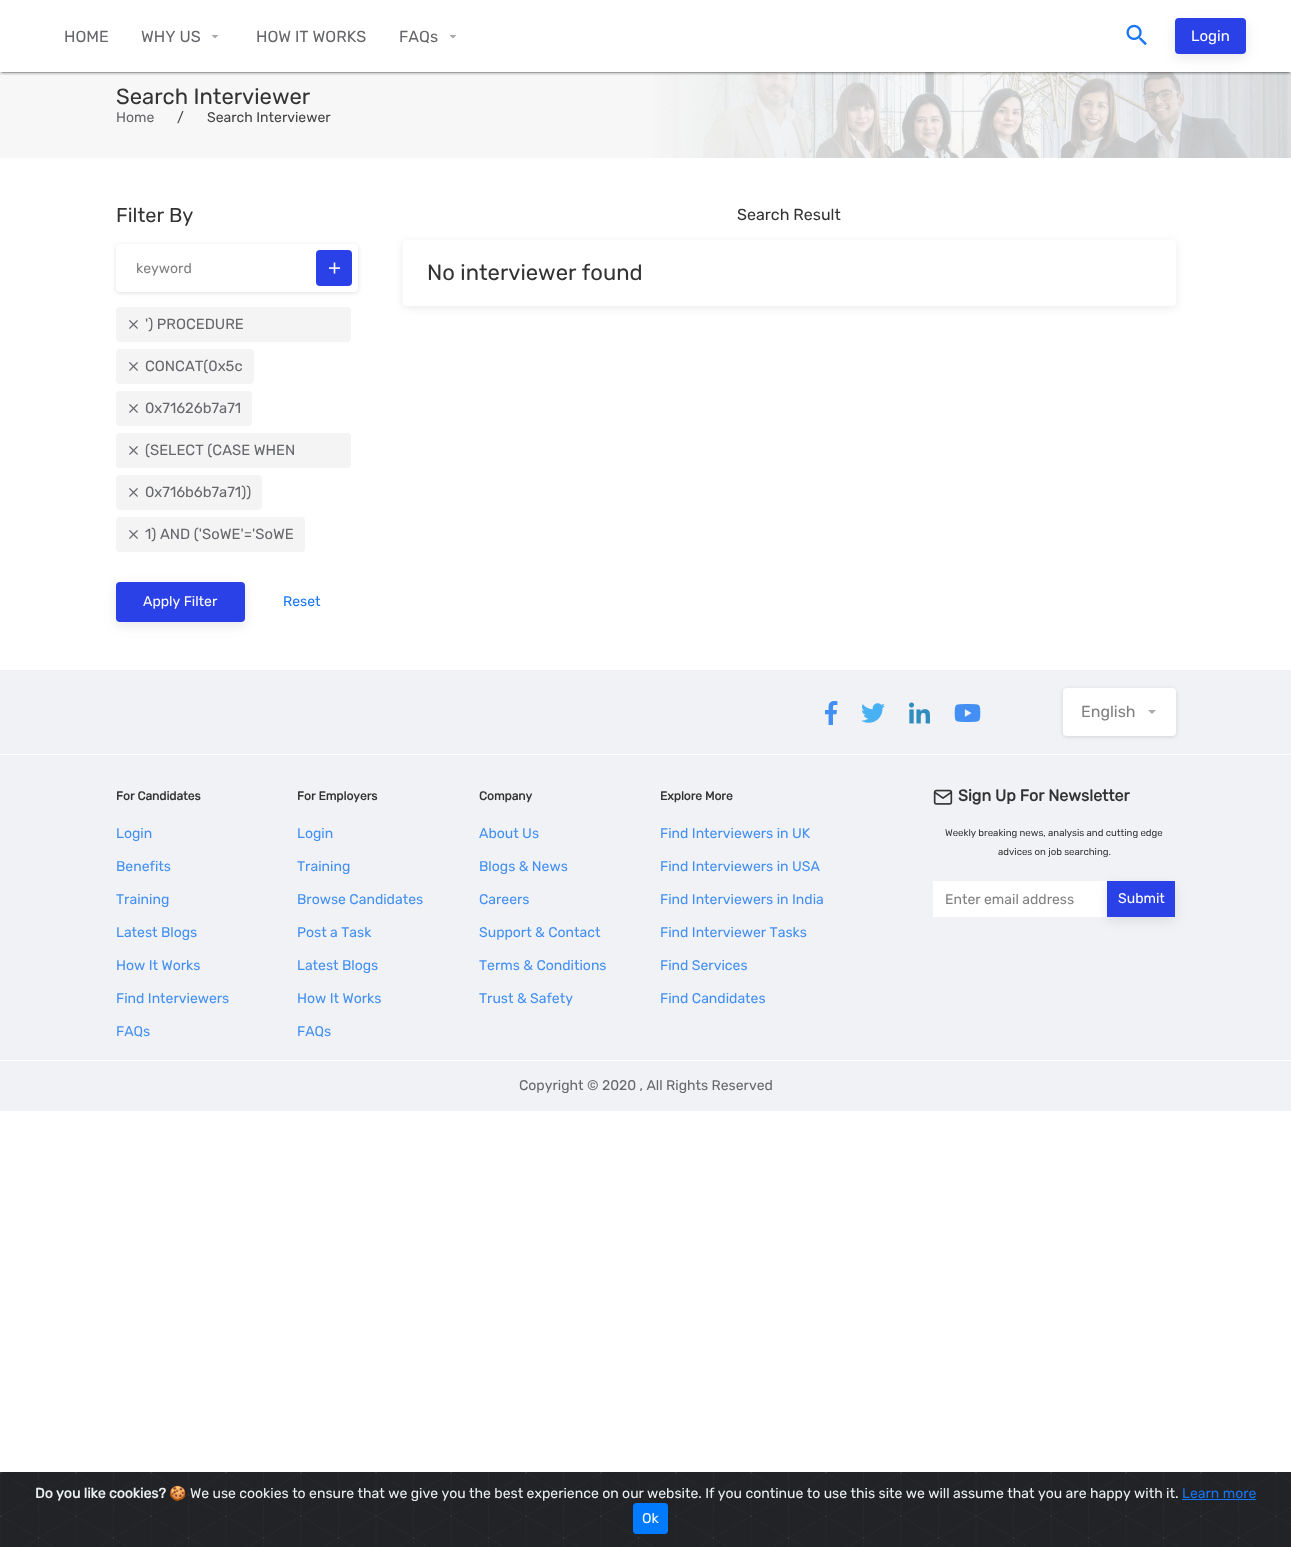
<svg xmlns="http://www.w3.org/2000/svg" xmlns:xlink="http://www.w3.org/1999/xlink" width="1291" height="1547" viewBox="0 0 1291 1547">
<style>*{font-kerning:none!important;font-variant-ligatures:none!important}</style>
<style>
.cls-1{font:16px Rubik;fill:#66676b}
.cls-2{font:15px Rubik;fill:#ffffff}
.cls-3{font:22px Rubik;fill:#333333}
.cls-4{font:14px Rubik;fill:#66676b}
.cls-5{font:14px Rubik;fill:#444444}
.cls-6{font:20px Rubik;fill:#333333}
.cls-7{font:14px Rubik;fill:#808080}
.cls-8{font:14.75px Rubik;fill:#66676b}
.cls-9{font:14px Rubik;fill:#ffffff}
.cls-10{font:14px Rubik;fill:#1876f2}
.cls-11{font:16px Rubik;fill:#333333}
.cls-12{font:16px Rubik;fill:#808080}
.cls-13{font:bold 12px Rubik;fill:#333333}
.cls-14{font:14px Rubik;fill:#438ff3}
.cls-15{font:bold 16px Rubik;fill:#333333}
.cls-16{font:9.6px Rubik;fill:#333333}
.cls-17{font:bold 14px Rubik;fill:#ecf0f1}
.cls-18{font:14px Noto Color Emoji;fill:#ecf0f1}
.cls-19{font:14px Rubik;fill:#ecf0f1}
</style>
<defs>
<linearGradient id="g1" gradientUnits="userSpaceOnUse" x1="0" y1="115" x2="1291" y2="115"><stop offset="0.5" stop-color="#f7f7f7"/><stop offset="0.7" stop-color="#f7f7f7" stop-opacity="0.8"/><stop offset="0.9" stop-color="#f7f7f7" stop-opacity="0.8"/></linearGradient>
<clipPath id="clip1"><rect x="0" y="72" width="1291" height="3"/></clipPath>
<clipPath id="clip2"><rect x="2" y="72" width="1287" height="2"/></clipPath>
</defs>
<rect width="100%" height="100%" fill="#ffffff"/>
<image xlink:href="image1.png" x="653" y="72" width="638" height="86"/>
<rect fill="url(#g1)" x="0" y="72" width="1291" height="86"/>
<g clip-path="url(#clip1)">
<rect fill="#000000" fill-opacity="0.12" filter="blur(2.5px)" x="0" y="1" width="1291" height="72"/>
<rect fill="#000000" fill-opacity="0.14" filter="blur(1px)" x="0" y="2" width="1291" height="72"/>
</g>
<g clip-path="url(#clip2)">
<rect fill="#000000" fill-opacity="0.2" filter="blur(0.5px)" x="2" y="5" width="1287" height="68"/>
</g>
<path fill="#a8a8a8" d="M211.5 35L215 38.5L218.5 35Z"/>
<path fill="#a8a8a8" d="M449.5 35L453 38.5L456.5 35Z"/>
<image xlink:href="image0.png" x="1126" y="24" width="21" height="22"/>
<rect fill="#66676b" fill-opacity="0.15" filter="blur(6px)" x="1175" y="22" width="71" height="36" rx="4"/>
<rect fill="#2a41e8" x="1175" y="18" width="71" height="36" rx="4"/>
<rect fill="#000000" fill-opacity="0.12" filter="blur(2px)" x="116" y="245" width="242" height="48" rx="4"/>
<rect fill="#ffffff" x="116" y="244" width="242" height="48" rx="4"/>
<rect fill="#2a41e8" x="316" y="250" width="36" height="36" rx="4"/>
<image xlink:href="image2.png" x="328" y="262" width="13" height="12"/>
<rect fill="#f4f4f5" x="116" y="307" width="235" height="35" rx="4"/>
<image xlink:href="image3.png" x="129" y="320" width="9" height="9"/>
<rect fill="#f4f4f5" x="116" y="349" width="138" height="35" rx="4"/>
<image xlink:href="image3.png" x="129" y="362" width="9" height="9"/>
<rect fill="#f4f4f5" x="116" y="391" width="136" height="35" rx="4"/>
<image xlink:href="image3.png" x="129" y="404" width="9" height="9"/>
<rect fill="#f4f4f5" x="116" y="433" width="235" height="35" rx="4"/>
<image xlink:href="image3.png" x="129" y="446" width="9" height="9"/>
<rect fill="#f4f4f5" x="116" y="475" width="146" height="35" rx="4"/>
<image xlink:href="image3.png" x="129" y="488" width="9" height="9"/>
<rect fill="#f4f4f5" x="116" y="517" width="189" height="35" rx="4"/>
<image xlink:href="image3.png" x="129" y="530" width="9" height="9"/>
<rect fill="#66676b" fill-opacity="0.15" filter="blur(6px)" x="116" y="586" width="129" height="40" rx="4"/>
<rect fill="#2a41e8" x="116" y="582" width="129" height="40" rx="4"/>
<rect fill="#000000" fill-opacity="0.08" filter="blur(4px)" x="403" y="242" width="773" height="66" rx="4"/>
<rect fill="#ffffff" x="403" y="240" width="773" height="66" rx="4"/>
<rect fill="#f0f2f5" x="0" y="670" width="1291" height="441"/>
<image xlink:href="image4.png" x="825" y="701" width="13" height="24"/>
<image xlink:href="image5.png" x="861" y="703" width="24" height="20"/>
<image xlink:href="image6.png" x="909" y="702" width="21" height="22"/>
<image xlink:href="image7.png" x="954" y="704" width="27" height="18"/>
<rect fill="#000000" fill-opacity="0.12" filter="blur(2px)" x="1063" y="689" width="113" height="48" rx="4"/>
<rect fill="#ffffff" x="1063" y="688" width="113" height="48" rx="4"/>
<path fill="#aaaaaa" d="M1148 710H1156L1152 714Z"/>
<rect fill="#ffffff" x="0" y="754" width="1291" height="1"/>
<image xlink:href="image8.png" x="933" y="789" width="20" height="16"/>
<rect fill="#ffffff" x="933" y="881" width="174" height="36"/>
<rect fill="#66676b" fill-opacity="0.15" filter="blur(6px)" x="1107" y="885" width="68" height="36"/>
<rect fill="#2a41e8" x="1107" y="881" width="68" height="36"/>
<rect fill="#ffffff" x="0" y="1060" width="1291" height="1"/>
<image xlink:href="image9.png" x="0" y="1472" width="1291" height="75"/>
<rect fill="#1876f2" x="1182" y="1499" width="74" height="1"/>
<rect fill="#007bff" stroke="#007bff" x="633.5" y="1503.5" width="34" height="30" rx="2.5"/>
<text class="cls-1" x="64" y="42">HOME</text>
<text class="cls-1" x="141" y="42">WHY US</text>
<text class="cls-1" x="256" y="42">HOW IT WORKS</text>
<text class="cls-1" x="399" y="42">FAQs</text>
<text class="cls-2" x="1191" y="41">Login</text>
<text class="cls-3" x="116" y="104">Search Interviewer</text>
<text class="cls-4" x="116" y="122">Home</text>
<text class="cls-5" x="177" y="122">/</text>
<text class="cls-5" x="207" y="122">Search Interviewer</text>
<text class="cls-6" x="116" y="222">Filter By</text>
<text class="cls-7" x="136" y="273">keyword</text>
<text class="cls-8" x="145" y="329">') PROCEDURE</text>
<text class="cls-8" x="145" y="371">CONCAT(0x5c</text>
<text class="cls-8" x="145" y="413">0x71626b7a71</text>
<text class="cls-8" x="145" y="455">(SELECT (CASE WHEN</text>
<text class="cls-8" x="145" y="497">0x716b6b7a71))</text>
<text class="cls-8" x="145" y="539">1) AND ('SoWE'='SoWE</text>
<text class="cls-9" x="143" y="606">Apply Filter</text>
<text class="cls-10" x="283" y="606">Reset</text>
<text class="cls-11" x="737" y="220">Search Result</text>
<text class="cls-3" x="427" y="280">No interviewer found</text>
<text class="cls-12" x="1081" y="717">English</text>
<text class="cls-13" x="116" y="800">For Candidates</text>
<text class="cls-14" x="116" y="838">Login</text>
<text class="cls-14" x="116" y="871">Benefits</text>
<text class="cls-14" x="116" y="904">Training</text>
<text class="cls-14" x="116" y="937">Latest Blogs</text>
<text class="cls-14" x="116" y="970">How It Works</text>
<text class="cls-14" x="116" y="1003">Find Interviewers</text>
<text class="cls-14" x="116" y="1036">FAQs</text>
<text class="cls-13" x="297" y="800">For Employers</text>
<text class="cls-14" x="297" y="838">Login</text>
<text class="cls-14" x="297" y="871">Training</text>
<text class="cls-14" x="297" y="904">Browse Candidates</text>
<text class="cls-14" x="297" y="937">Post a Task</text>
<text class="cls-14" x="297" y="970">Latest Blogs</text>
<text class="cls-14" x="297" y="1003">How It Works</text>
<text class="cls-14" x="297" y="1036">FAQs</text>
<text class="cls-13" x="479" y="800">Company</text>
<text class="cls-14" x="479" y="838">About Us</text>
<text class="cls-14" x="479" y="871">Blogs &amp; News</text>
<text class="cls-14" x="479" y="904">Careers</text>
<text class="cls-14" x="479" y="937">Support &amp; Contact</text>
<text class="cls-14" x="479" y="970">Terms &amp; Conditions</text>
<text class="cls-14" x="479" y="1003">Trust &amp; Safety</text>
<text class="cls-13" x="660" y="800">Explore More</text>
<text class="cls-14" x="660" y="838">Find Interviewers in UK</text>
<text class="cls-14" x="660" y="871">Find Interviewers in USA</text>
<text class="cls-14" x="660" y="904">Find Interviewers in India</text>
<text class="cls-14" x="660" y="937">Find Interviewer Tasks</text>
<text class="cls-14" x="660" y="970">Find Services</text>
<text class="cls-14" x="660" y="1003">Find Candidates</text>
<text class="cls-15" x="958" y="801">Sign Up For Newsletter</text>
<text class="cls-16" x="945" y="836">Weekly breaking news, analysis and cutting edge</text>
<text class="cls-16" x="998" y="855">advices on job searching.</text>
<text class="cls-7" x="945" y="904">Enter email address</text>
<text class="cls-9" x="1118" y="903">Submit</text>
<text class="cls-4" x="519" y="1090">Copyright © 2020 , All Rights Reserved</text>
<text class="cls-17" x="35" y="1498">Do you like cookies?</text>
<text class="cls-18" x="169" y="1498">🍪</text>
<text class="cls-19" x="190" y="1498">We use cookies to ensure that we give you the best experience on our</text>
<text class="cls-19" x="647" y="1498">website. If you continue to use this site we will assume that</text>
<text class="cls-19" x="1038" y="1498">you are happy with it.</text>
<text class="cls-10" x="1182" y="1498">Learn more</text>
<text class="cls-9" x="642" y="1523">Ok</text>
</svg>
